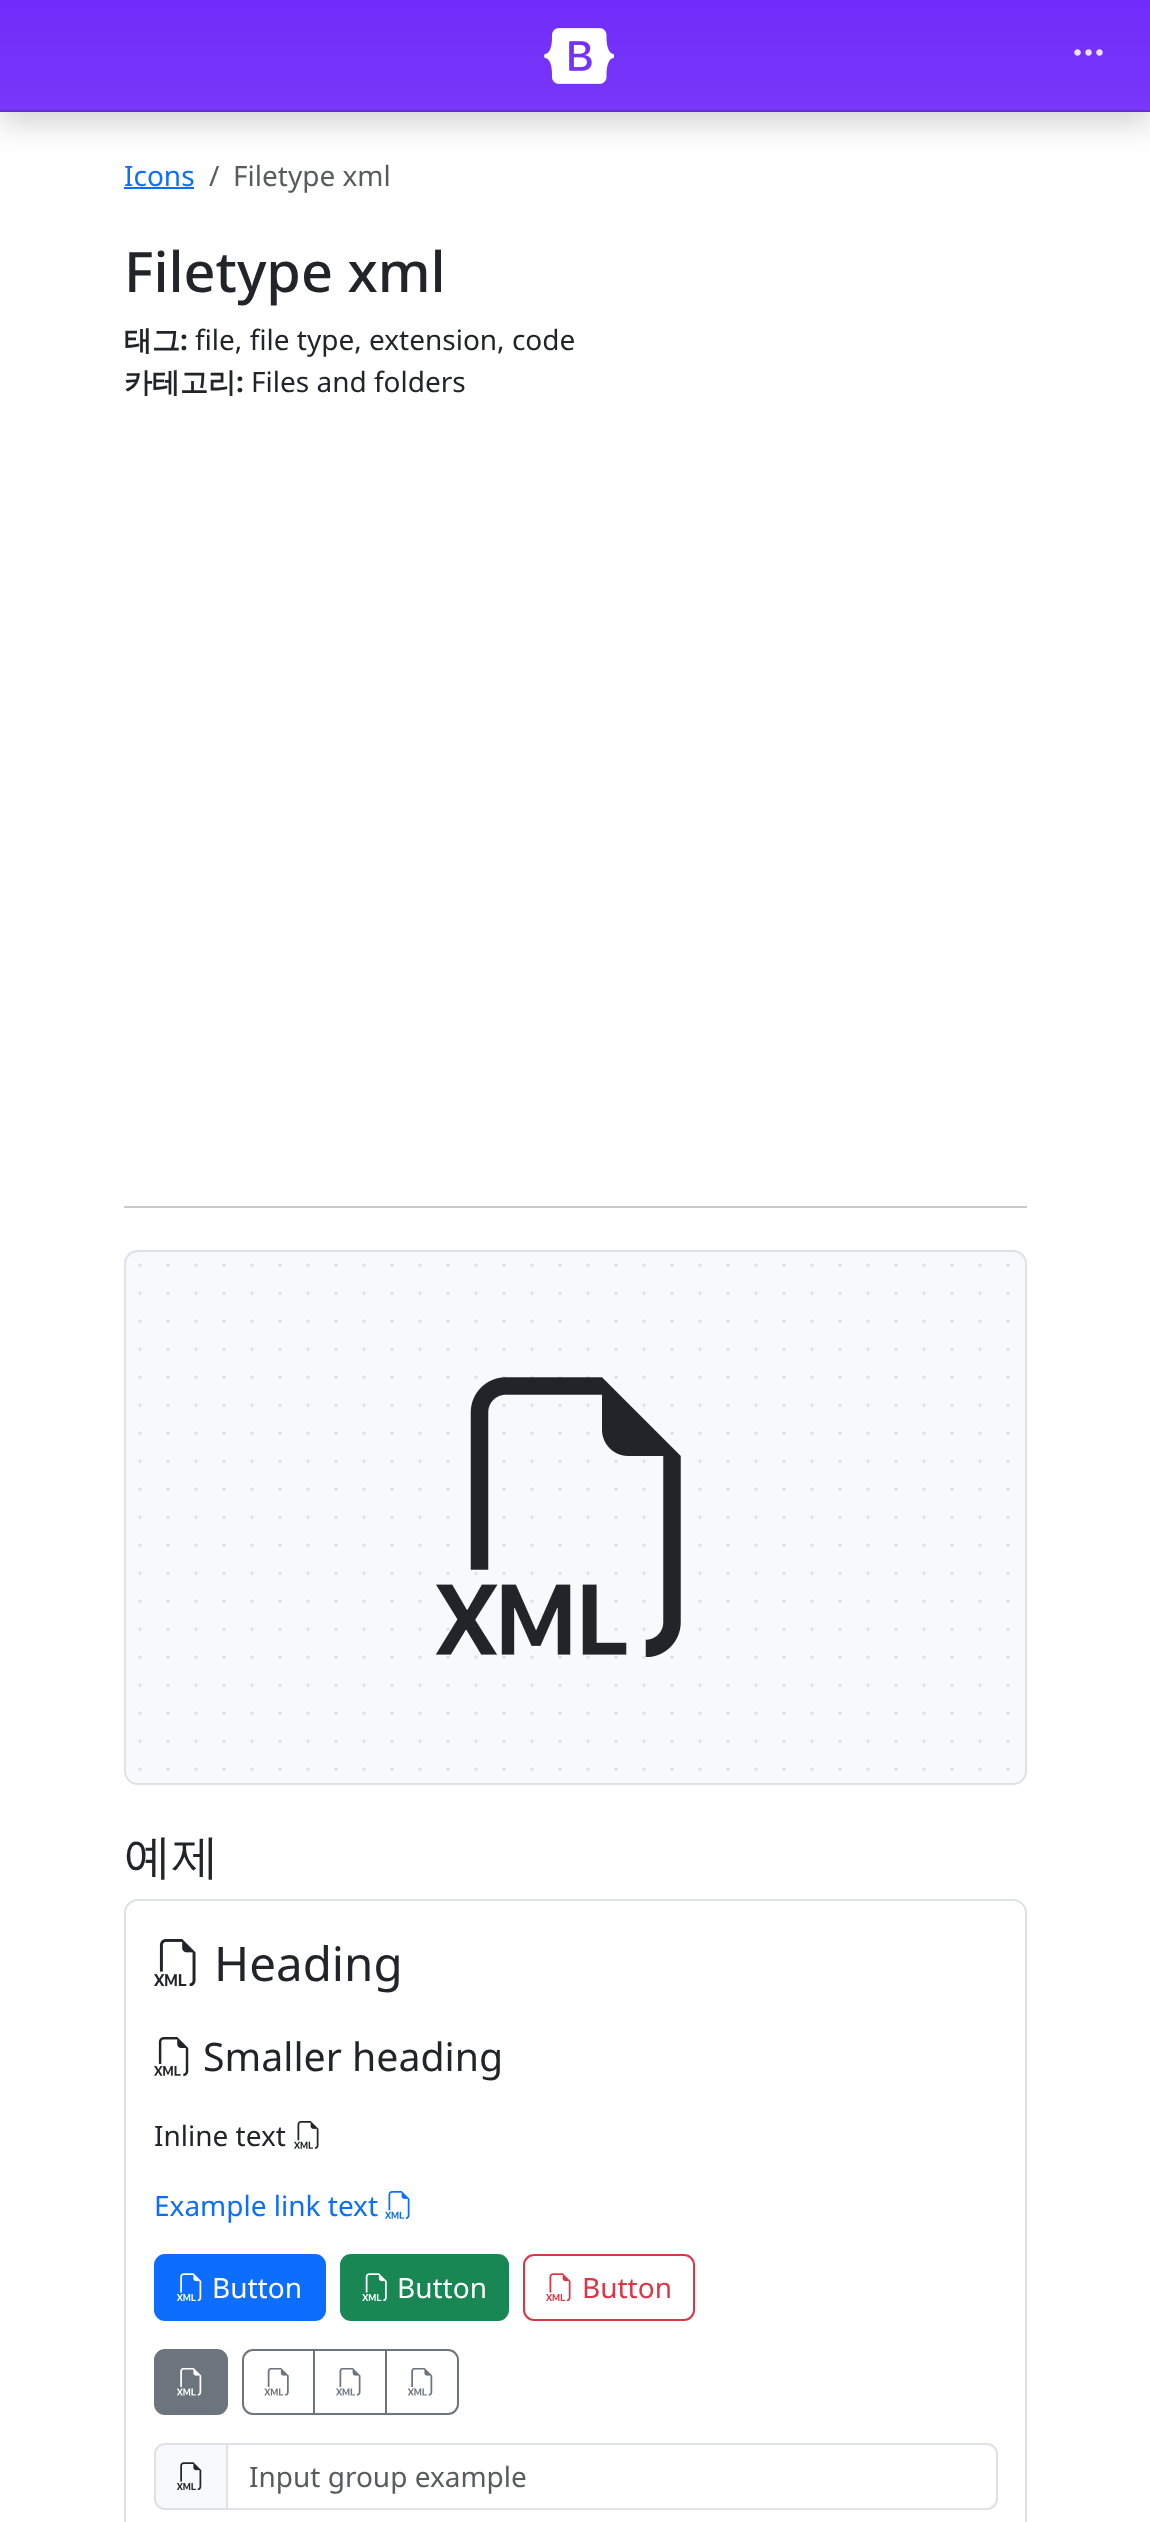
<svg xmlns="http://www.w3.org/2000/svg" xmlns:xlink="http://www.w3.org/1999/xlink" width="1150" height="2522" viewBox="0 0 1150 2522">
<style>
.cls-1{font:28px Noto Sans;fill:#0d6efd}
.cls-2{font:28px Noto Sans;fill:#595c5f}
.cls-3{font:500 55.75px Noto Sans;fill:#212529}
.cls-4{font:bold 28px WenQuanYi Zen Hei;fill:#212529}
.cls-5{font:bold 28px Noto Sans;fill:#212529}
.cls-6{font:28px Noto Sans;fill:#212529}
.cls-7{font:500 47.5px WenQuanYi Zen Hei;fill:#212529}
.cls-8{font:47.5px Noto Sans;fill:#212529}
.cls-9{font:39.25px Noto Sans;fill:#212529}
.cls-10{font:28px Noto Sans;fill:#ffffff}
.cls-11{font:28px Noto Sans;fill:#dc3545}
</style>
<defs>
<linearGradient id="g1" gradientUnits="userSpaceOnUse" x1="576" y1="0" x2="576" y2="112"><stop offset="0" stop-color="#712cf9"/><stop offset="1" stop-color="#7837f9"/></linearGradient>
</defs>
<rect width="100%" height="100%" fill="#ffffff"/>
<rect fill="#000000" fill-opacity="0.15" filter="blur(14px)" x="0" y="14" width="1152" height="112"/>
<rect fill="url(#g1)" x="0" y="0" width="1150" height="110"/>
<rect fill="#662fd4" x="0" y="110" width="1150" height="2"/>
<image xlink:href="image0.png" x="544" y="28" width="70" height="56"/>
<image xlink:href="image1.png" x="1074" y="49" width="29" height="7"/>
<rect fill="#0d6efd" x="124" y="187" width="70" height="2"/>
<rect fill="#c8c9ca" x="124" y="1206" width="903" height="2"/>
<rect fill="#f8f9fa" x="124" y="1250" width="903" height="535" rx="14"/>
<path fill="none" stroke="#dee2e6" stroke-width="3.5" stroke-linecap="round" stroke-dasharray="0 28" d="M140 1265.2H1008.4"/>
<path fill="none" stroke="#dee2e6" stroke-width="3.5" stroke-linecap="round" stroke-dasharray="0 28" d="M140 1293.2H1008.4"/>
<path fill="none" stroke="#dee2e6" stroke-width="3.5" stroke-linecap="round" stroke-dasharray="0 28" d="M140 1321.2H1008.4"/>
<path fill="none" stroke="#dee2e6" stroke-width="3.5" stroke-linecap="round" stroke-dasharray="0 28" d="M140 1349.2H1008.4"/>
<path fill="none" stroke="#dee2e6" stroke-width="3.5" stroke-linecap="round" stroke-dasharray="0 28" d="M140 1377.2H1008.4"/>
<path fill="none" stroke="#dee2e6" stroke-width="3.5" stroke-linecap="round" stroke-dasharray="0 28" d="M140 1405.2H1008.4"/>
<path fill="none" stroke="#dee2e6" stroke-width="3.5" stroke-linecap="round" stroke-dasharray="0 28" d="M140 1433.2H1008.4"/>
<path fill="none" stroke="#dee2e6" stroke-width="3.5" stroke-linecap="round" stroke-dasharray="0 28" d="M140 1461.2H1008.4"/>
<path fill="none" stroke="#dee2e6" stroke-width="3.5" stroke-linecap="round" stroke-dasharray="0 28" d="M140 1489.2H1008.4"/>
<path fill="none" stroke="#dee2e6" stroke-width="3.5" stroke-linecap="round" stroke-dasharray="0 28" d="M140 1517.2H1008.4"/>
<path fill="none" stroke="#dee2e6" stroke-width="3.5" stroke-linecap="round" stroke-dasharray="0 28" d="M140 1545.2H1008.4"/>
<path fill="none" stroke="#dee2e6" stroke-width="3.5" stroke-linecap="round" stroke-dasharray="0 28" d="M140 1573.2H1008.4"/>
<path fill="none" stroke="#dee2e6" stroke-width="3.5" stroke-linecap="round" stroke-dasharray="0 28" d="M140 1601.2H1008.4"/>
<path fill="none" stroke="#dee2e6" stroke-width="3.5" stroke-linecap="round" stroke-dasharray="0 28" d="M140 1629.2H1008.4"/>
<path fill="none" stroke="#dee2e6" stroke-width="3.5" stroke-linecap="round" stroke-dasharray="0 28" d="M140 1657.2H1008.4"/>
<path fill="none" stroke="#dee2e6" stroke-width="3.5" stroke-linecap="round" stroke-dasharray="0 28" d="M140 1685.2H1008.4"/>
<path fill="none" stroke="#dee2e6" stroke-width="3.5" stroke-linecap="round" stroke-dasharray="0 28" d="M140 1713.2H1008.4"/>
<path fill="none" stroke="#dee2e6" stroke-width="3.5" stroke-linecap="round" stroke-dasharray="0 28" d="M140 1741.2H1008.4"/>
<path fill="none" stroke="#dee2e6" stroke-width="3.5" stroke-linecap="round" stroke-dasharray="0 28" d="M140 1769.2H1008.4"/>
<rect fill="none" stroke="#dee2e6" stroke-width="2" x="125" y="1251" width="901" height="533" rx="13"/>
<image xlink:href="image2.png" x="436" y="1377" width="245" height="280"/>
<rect fill="none" stroke="#dee2e6" stroke-width="2" x="125" y="1900" width="901" height="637" rx="13"/>
<image xlink:href="image3.png" x="154" y="1939" width="42" height="47"/>
<image xlink:href="image4.png" x="154" y="2037" width="35" height="39"/>
<image xlink:href="image5.png" x="294" y="2121" width="25" height="28"/>
<image xlink:href="image6.png" x="385" y="2191" width="25" height="28"/>
<rect fill="#0d6efd" stroke="#0d6efd" stroke-width="2" x="155" y="2255" width="170" height="65" rx="10"/>
<image xlink:href="image7.png" x="177" y="2273" width="25" height="28"/>
<rect fill="#198754" stroke="#198754" stroke-width="2" x="341" y="2255" width="167" height="65" rx="10"/>
<image xlink:href="image8.png" x="362" y="2273" width="25" height="28"/>
<rect fill="none" stroke="#dc3545" stroke-width="2" x="524" y="2255" width="170" height="65" rx="10"/>
<image xlink:href="image9.png" x="546" y="2273" width="25" height="28"/>
<rect fill="#6c757d" stroke="#6c757d" stroke-width="2" x="155" y="2350" width="72" height="64" rx="10"/>
<image xlink:href="image10.png" x="177" y="2368" width="25" height="28"/>
<path fill="none" stroke="#6c757d" stroke-width="2" d="M253 2350H314V2414H253C247.5 2414 243 2409.5 243 2404V2360C243 2354.5 247.5 2350 253 2350Z"/>
<image xlink:href="image11.png" x="264" y="2368" width="25" height="28"/>
<rect fill="none" stroke="#6c757d" stroke-width="2" x="314" y="2350" width="72" height="64"/>
<image xlink:href="image12.png" x="336" y="2368" width="25" height="28"/>
<path fill="none" stroke="#6c757d" stroke-width="2" d="M386 2350H448C453.5 2350 458 2354.5 458 2360V2404C458 2409.5 453.5 2414 448 2414H386Z"/>
<image xlink:href="image13.png" x="408" y="2368" width="25" height="28"/>
<path fill="#f8f9fa" stroke="#dee2e6" stroke-width="2" d="M165 2444H227V2509H165C159.5 2509 155 2504.5 155 2499V2454C155 2448.5 159.5 2444 165 2444Z"/>
<image xlink:href="image14.png" x="177" y="2462" width="25" height="28"/>
<path fill="none" stroke="#dee2e6" stroke-width="2" d="M227 2444H987C992.5 2444 997 2448.5 997 2454V2499C997 2504.5 992.5 2509 987 2509H227Z"/>
<text class="cls-1" x="124" y="186">Icons</text>
<text class="cls-2" x="209" y="186">/</text>
<text class="cls-2" x="233" y="186">Filetype xml</text>
<text class="cls-3" x="124" y="292">Filetype xml</text>
<text class="cls-4" x="124" y="350">태그</text>
<text class="cls-5" x="180" y="350">:</text>
<text class="cls-6" x="195" y="350">file, file type, extension, code</text>
<text class="cls-4" x="124" y="392">카테고리</text>
<text class="cls-5" x="236" y="392">:</text>
<text class="cls-6" x="251" y="392">Files and folders</text>
<text class="cls-7" x="124" y="1873">예제</text>
<text class="cls-8" x="214" y="1981">Heading</text>
<text class="cls-9" x="203" y="2071">Smaller heading</text>
<text class="cls-6" x="154" y="2146">Inline text</text>
<text class="cls-1" x="154" y="2216">Example link text</text>
<text class="cls-10" x="212" y="2298">Button</text>
<text class="cls-10" x="397" y="2298">Button</text>
<text class="cls-11" x="582" y="2298">Button</text>
<text class="cls-2" x="249" y="2487">Input group example</text>
</svg>
